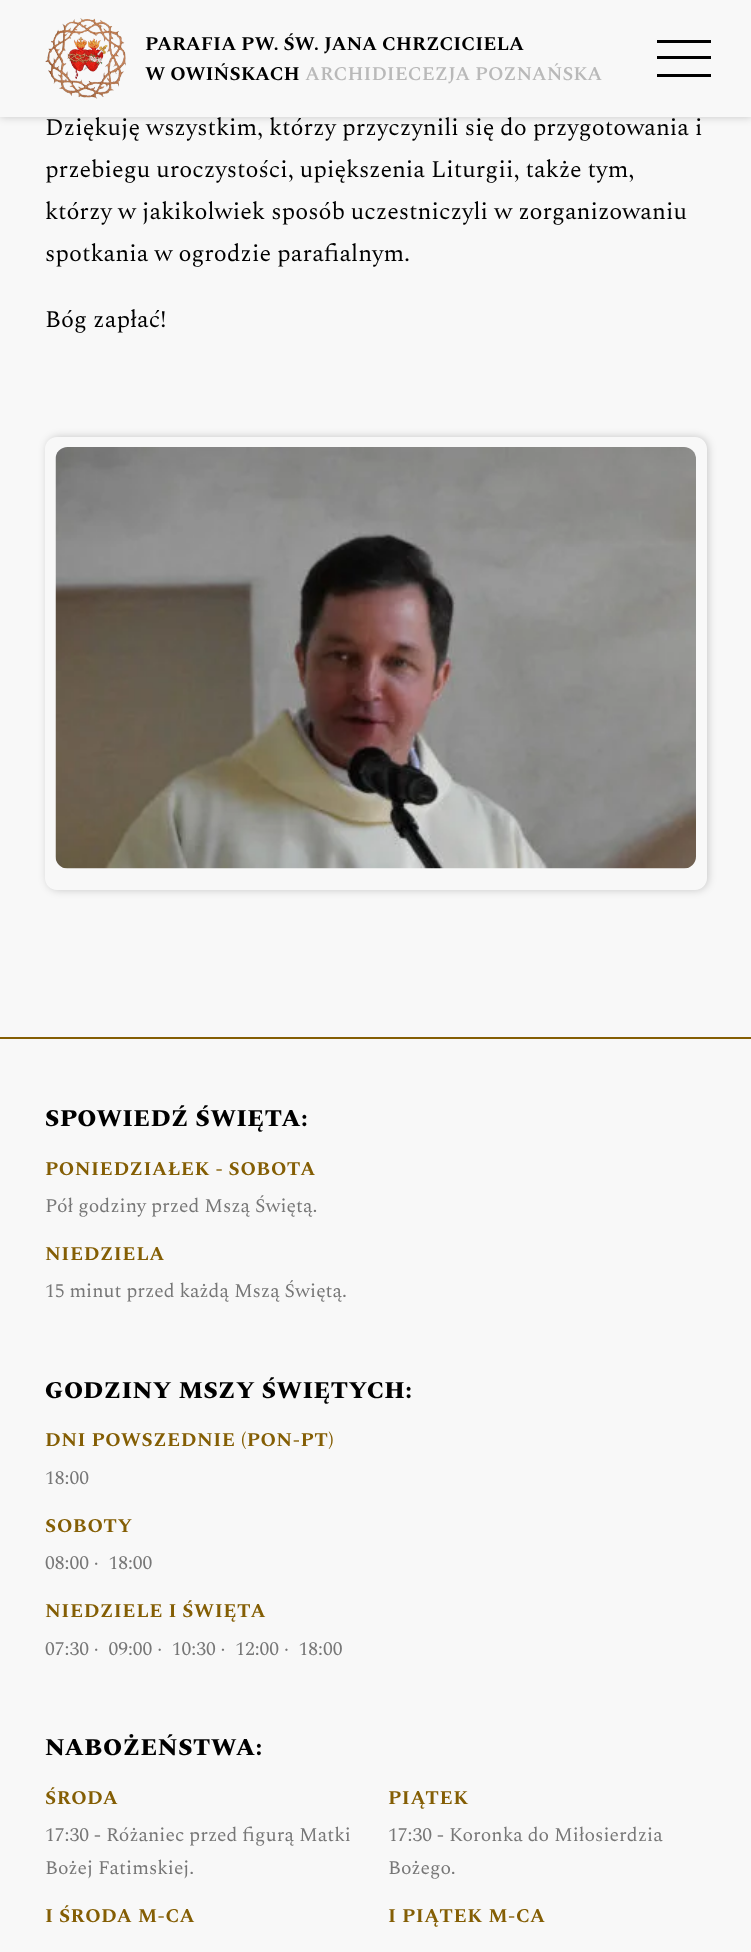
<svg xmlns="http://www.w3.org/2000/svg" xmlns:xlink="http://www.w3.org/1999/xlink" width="751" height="1952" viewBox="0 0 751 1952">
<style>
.cls-1{font:bold 19.5px Spectral;fill:#000000}
.cls-2{font:600 19.5px Spectral SC;fill:#b9b9b9}
.cls-3{font:24px Spectral;fill:#000000}
.cls-4{font:800 24px Spectral SC;letter-spacing:0.5px;fill:#000000}
.cls-5{font:bold 19.5px Spectral;letter-spacing:0.5px;fill:#845e04}
.cls-6{font:19.5px Spectral;fill:#777777}
</style>
<defs>
<clipPath id="clip1"><path d="M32 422H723V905H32ZM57 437H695C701.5 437 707 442.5 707 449V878C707 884.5 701.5 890 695 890H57C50.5 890 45 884.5 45 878V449C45 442.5 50.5 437 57 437Z" clip-rule="evenodd"/></clipPath>
</defs>
<rect width="100%" height="100%" fill="#f8f8f8"/>
<rect fill="#000000" fill-opacity="0.2" filter="blur(4px)" x="0" y="0" width="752" height="117"/>
<rect fill="#f8f8f8" x="0" y="0" width="751" height="117"/>
<image xlink:href="image0.png" x="45" y="18" width="81" height="81"/>
<rect fill="#000000" x="657" y="40" width="54" height="3"/>
<rect fill="#000000" x="657" y="74" width="54" height="3"/>
<rect fill="#000000" x="657" y="56" width="54" height="3"/>
<g clip-path="url(#clip1)">
<rect fill="#000000" fill-opacity="0.2" filter="blur(4.5px)" x="47" y="437" width="661" height="453" rx="12"/>
</g>
<image xlink:href="image1.png" x="55" y="447" width="641" height="422"/>
<rect fill="#845e04" x="0" y="1037" width="751" height="2"/>
<text class="cls-1"><tspan x="145" y="50">PARAFIA PW. ŚW. JANA CHRZCICIELA</tspan><tspan x="145" y="80">W OWIŃSKACH</tspan></text>
<text class="cls-2" x="305" y="80">ARCHIDIECEZJA POZNAŃSKA</text>
<text class="cls-3"><tspan x="45" y="135">Dziękuję wszystkim, którzy przyczynili się do przygotowania i</tspan><tspan x="45" y="177">przebiegu uroczystości, upiększenia Liturgii, także tym,</tspan><tspan x="45" y="219">którzy w jakikolwiek sposób uczestniczyli w zorganizowaniu</tspan><tspan x="45" y="261">spotkania w ogrodzie parafialnym.</tspan></text>
<text class="cls-3" x="45" y="327">Bóg zapłać!</text>
<text class="cls-4" x="45" y="1126">SPOWIEDŹ ŚWIĘTA:</text>
<text class="cls-5" x="45" y="1175">PONIEDZIAŁEK - SOBOTA</text>
<text class="cls-6" x="45" y="1212">Pół godziny przed Mszą Świętą.</text>
<text class="cls-5" x="45" y="1260">NIEDZIELA</text>
<text class="cls-6" x="45" y="1297">15 minut przed każdą Mszą Świętą.</text>
<text class="cls-4" x="45" y="1398">GODZINY MSZY ŚWIĘTYCH:</text>
<text class="cls-5" x="45" y="1446">DNI POWSZEDNIE (PON-PT)</text>
<text class="cls-6" x="45" y="1484">18:00</text>
<text class="cls-5" x="45" y="1532">SOBOTY</text>
<text class="cls-6" xml:space="preserve" x="45" y="1569">08:00 ·  18:00</text>
<text class="cls-5" x="45" y="1617">NIEDZIELE I ŚWIĘTA</text>
<text class="cls-6" xml:space="preserve" x="45" y="1655">07:30 ·  09:00 ·  10:30 ·  12:00 ·  18:00</text>
<text class="cls-4" x="45" y="1755">NABOŻEŃSTWA:</text>
<text class="cls-5" x="45" y="1804">ŚRODA</text>
<text class="cls-6"><tspan x="45" y="1841">17:30 - Różaniec przed figurą Matki</tspan><tspan x="45" y="1874">Bożej Fatimskiej.</tspan></text>
<text class="cls-5" x="388" y="1804">PIĄTEK</text>
<text class="cls-6"><tspan x="388" y="1841">17:30 - Koronka do Miłosierdzia</tspan><tspan x="388" y="1874">Bożego.</tspan></text>
<text class="cls-5" x="45" y="1922">I ŚRODA M-CA</text>
<text class="cls-5" x="388" y="1922">I PIĄTEK M-CA</text>
</svg>
